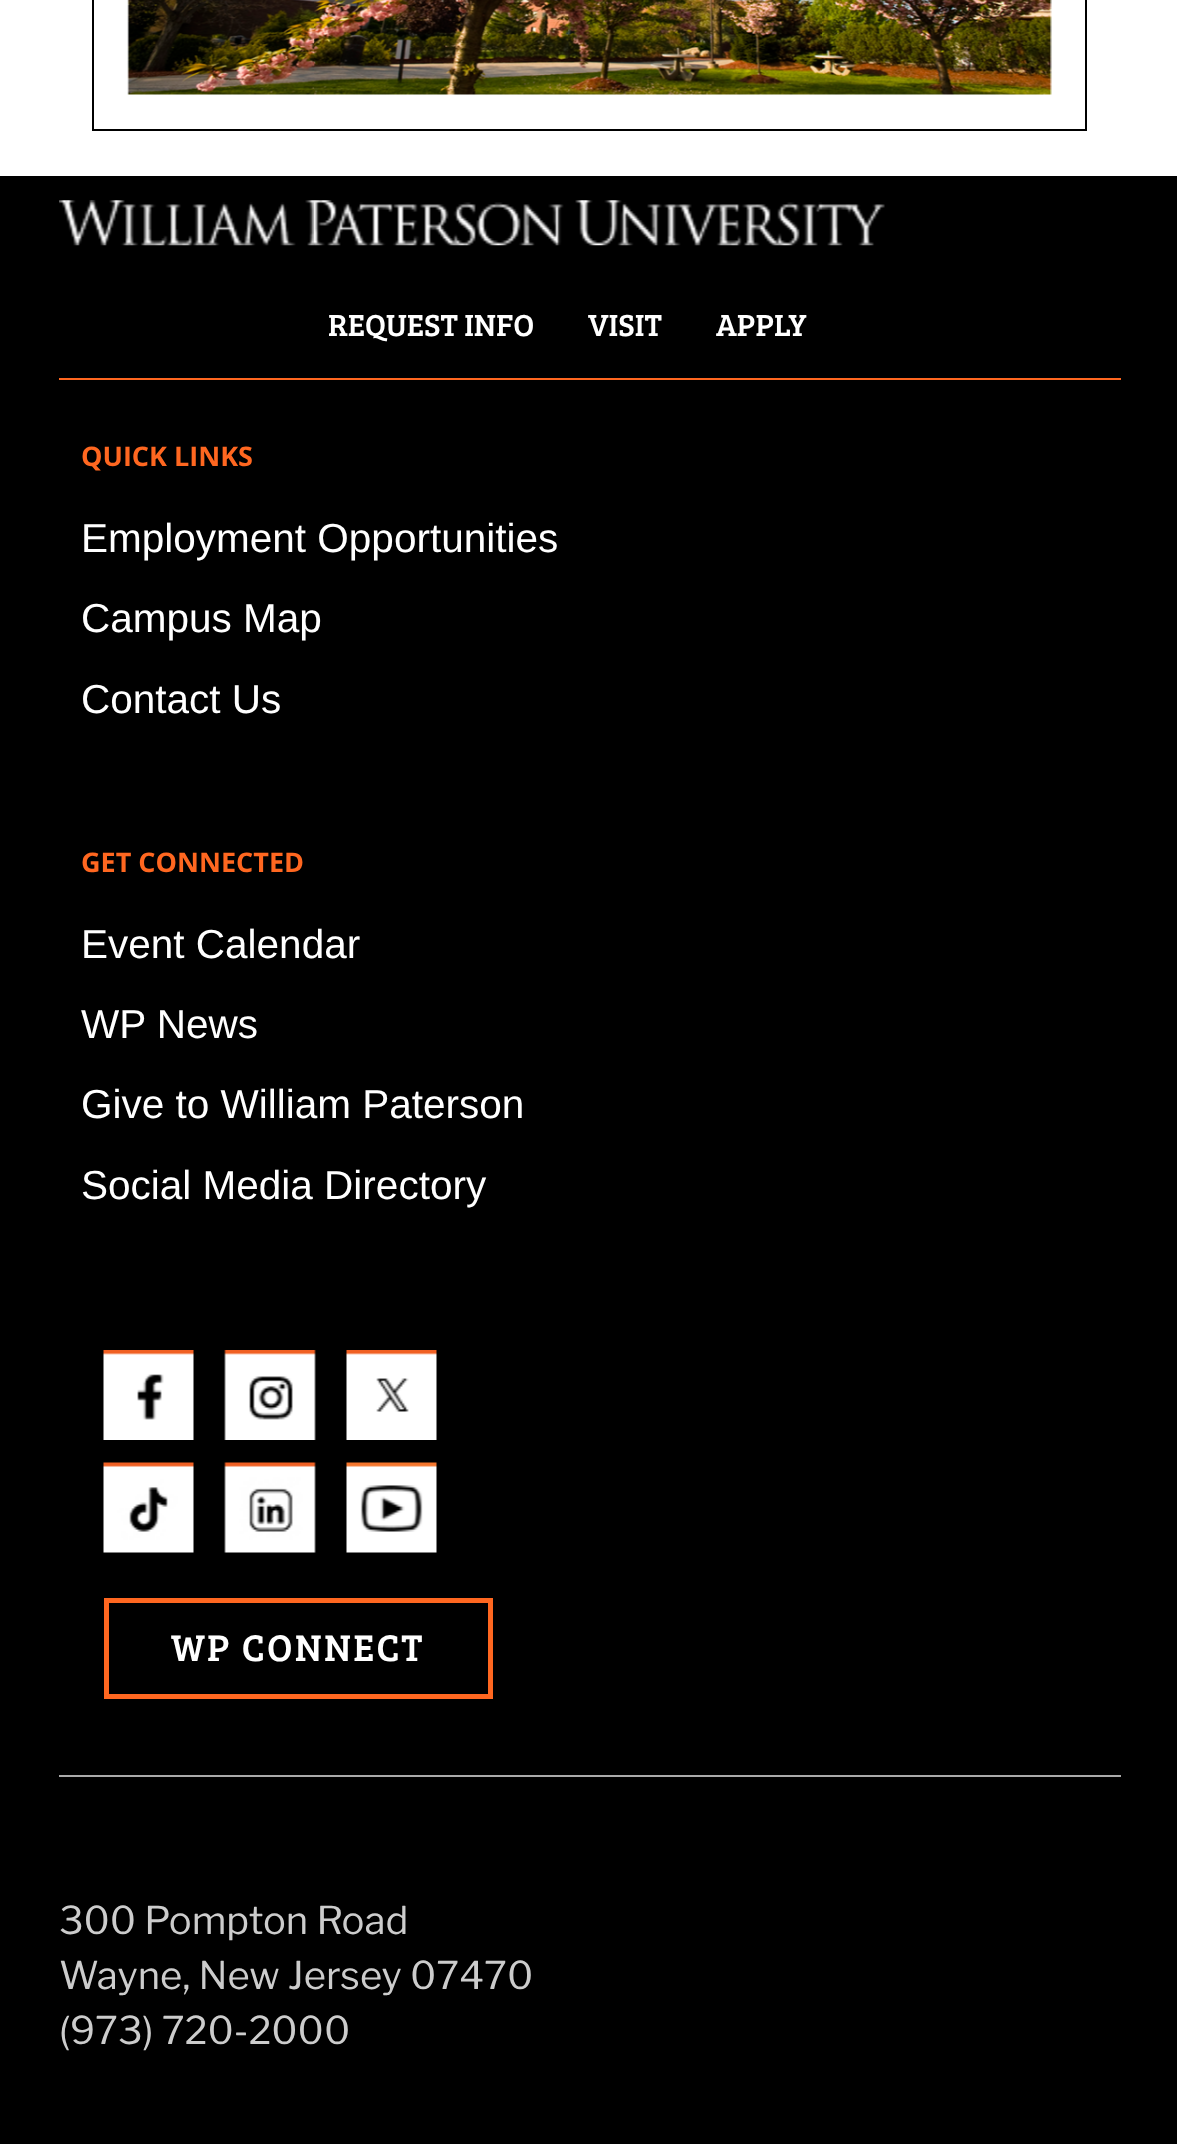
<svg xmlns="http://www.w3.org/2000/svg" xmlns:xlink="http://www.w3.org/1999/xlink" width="1177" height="2144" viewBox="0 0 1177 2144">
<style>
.cls-1{font:31.5px Bree Serif;fill:#ffffff}
.cls-2{font:bold 27px Open Sans;fill:#ff6720}
.cls-3{font:40.5px Liberation Sans;fill:#ffffff}
.cls-4{font:38.25px Bree Serif;letter-spacing:2.25px;fill:#ffffff}
.cls-5{font:38.25px Libre Franklin;fill:#cccccc}
</style>
<rect width="100%" height="100%" fill="#ffffff"/>
<rect fill="none" stroke="#000000" stroke-width="2" x="93" y="-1" width="993" height="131"/>
<image xlink:href="image0.png" x="127" y="0" width="925" height="95"/>
<rect fill="#000000" x="0" y="176" width="1177" height="1968"/>
<image xlink:href="image1.png" x="59" y="200" width="826" height="46"/>
<rect fill="#ff6720" x="59" y="378" width="1062" height="2"/>
<image xlink:href="image2.png" x="103" y="1350" width="91" height="90"/>
<image xlink:href="image3.png" x="224" y="1350" width="92" height="90"/>
<image xlink:href="image4.png" x="346" y="1350" width="91" height="90"/>
<image xlink:href="image5.png" x="103" y="1462" width="91" height="91"/>
<image xlink:href="image6.png" x="224" y="1462" width="92" height="91"/>
<image xlink:href="image7.png" x="346" y="1462" width="91" height="91"/>
<rect fill="none" stroke="#ff6720" stroke-width="5" x="106.5" y="1600.5" width="384" height="96"/>
<rect fill="#aaaaaa" x="59" y="1775" width="1062" height="2"/>
<text class="cls-1" x="328" y="336">REQUEST INFO</text>
<text class="cls-1" x="588" y="336">VISIT</text>
<text class="cls-1" x="716" y="336">APPLY</text>
<text class="cls-2" x="81" y="466">QUICK LINKS</text>
<text class="cls-3"><tspan x="81" y="552">Employment Opportunities</tspan><tspan x="81" y="632">Campus Map</tspan></text>
<text class="cls-3" x="81" y="713">Contact Us</text>
<text class="cls-2" x="81" y="872">GET CONNECTED</text>
<text class="cls-3"><tspan x="81" y="958">Event Calendar</tspan><tspan x="81" y="1038">WP News</tspan><tspan x="81" y="1118">Give to William Paterson</tspan></text>
<text class="cls-3" x="81" y="1199">Social Media Directory</text>
<text class="cls-4" x="171" y="1661">WP CONNECT</text>
<text class="cls-5"><tspan x="59" y="1934">300 Pompton Road</tspan><tspan x="59" y="1989">Wayne, New Jersey 07470</tspan><tspan x="59" y="2044">(973) 720-2000</tspan></text>
</svg>
